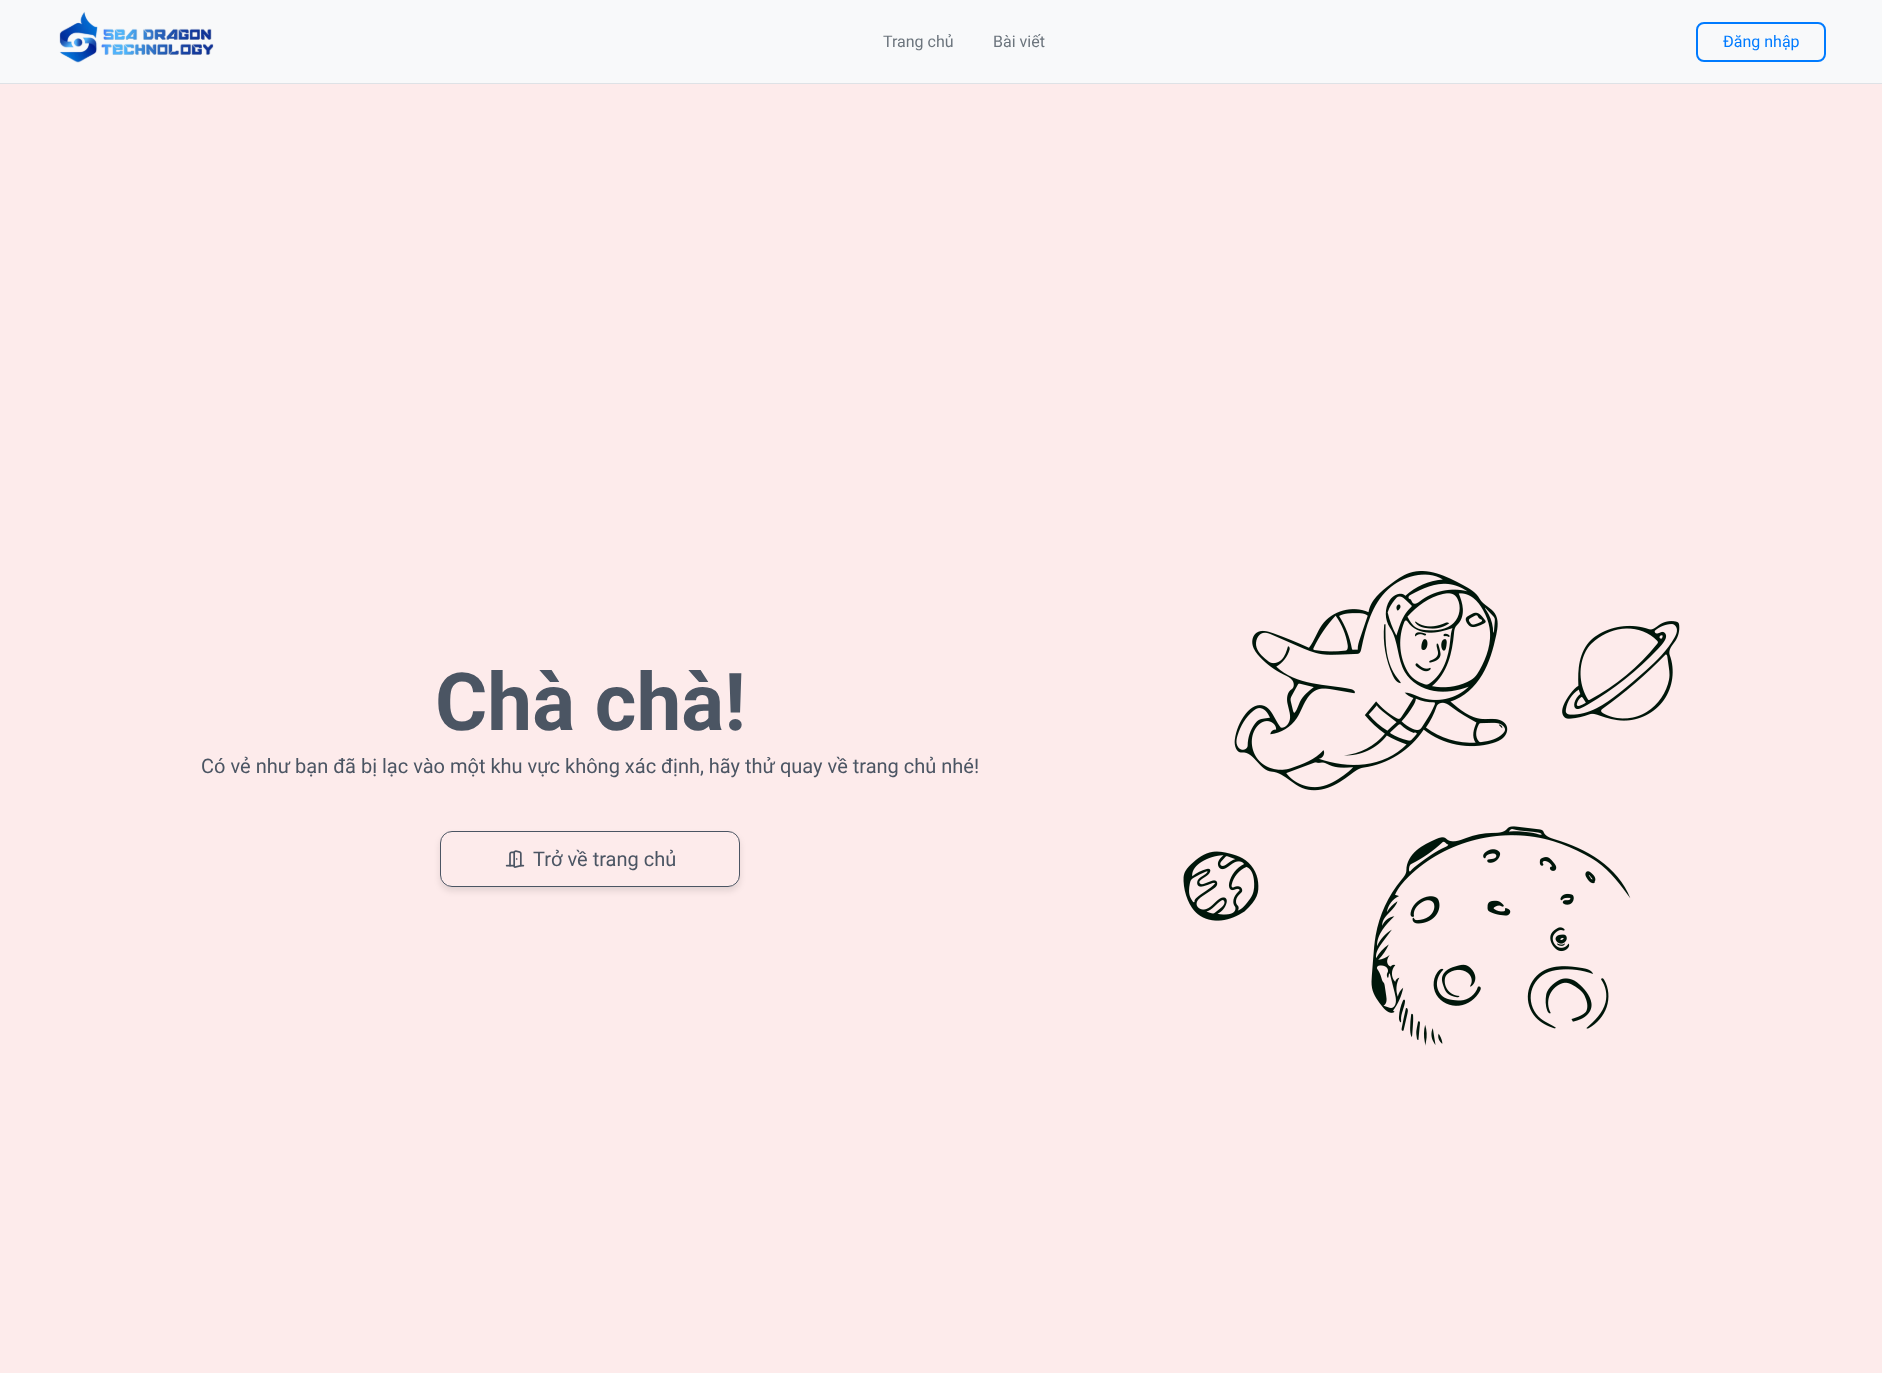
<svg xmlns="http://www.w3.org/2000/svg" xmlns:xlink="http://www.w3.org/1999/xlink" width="1882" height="1373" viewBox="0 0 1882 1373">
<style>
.cls-1{font:16px Roboto;fill:#6c757d}
.cls-2{font:16px Roboto;fill:#007bff}
.cls-3{font:bold 80px Roboto;fill:#4b5563}
.cls-4{font:20px Roboto;fill:#4b5563}
</style>
<defs>
<clipPath id="clip1"><path d="M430 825H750V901H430ZM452 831H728C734.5 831 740 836.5 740 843V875C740 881.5 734.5 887 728 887H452C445.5 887 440 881.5 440 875V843C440 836.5 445.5 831 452 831Z" clip-rule="evenodd"/></clipPath>
</defs>
<rect width="100%" height="100%" fill="#f8f9fa"/>
<rect fill="#dee2e6" x="0" y="83" width="1882" height="1"/>
<image xlink:href="image0.png" x="59" y="11" width="155" height="52"/>
<rect fill="none" stroke="#007bff" stroke-width="2" x="1697" y="23" width="128" height="38" rx="7"/>
<rect fill="#fdebeb" x="0" y="84" width="1882" height="1289"/>
<g clip-path="url(#clip1)">
<rect fill="#000000" fill-opacity="0.1" filter="blur(3px)" x="440" y="835" width="300" height="56" rx="12"/>
</g>
<rect fill="none" stroke="#4b5563" x="440.5" y="831.5" width="299" height="55" rx="11.5"/>
<image xlink:href="image1.png" x="505" y="850" width="20" height="18"/>
<image xlink:href="image2.png" x="1234" y="571" width="274" height="220"/>
<image xlink:href="image3.png" x="1562" y="621" width="118" height="100"/>
<image xlink:href="image4.png" x="1183" y="851" width="76" height="70"/>
<image xlink:href="image5.png" x="1371" y="826" width="260" height="220"/>
<text class="cls-1" x="883" y="47">Trang chủ</text>
<text class="cls-1" x="993" y="47">Bài viết</text>
<text class="cls-2" x="1723" y="47">Đăng nhập</text>
<text class="cls-3" x="435" y="730">Chà chà!</text>
<text class="cls-4" x="201" y="773">Có vẻ như bạn đã bị lạc vào một khu vực không xác định, hãy thử quay về trang chủ nhé!</text>
<text class="cls-4" x="533" y="866">Trở về trang chủ</text>
</svg>
